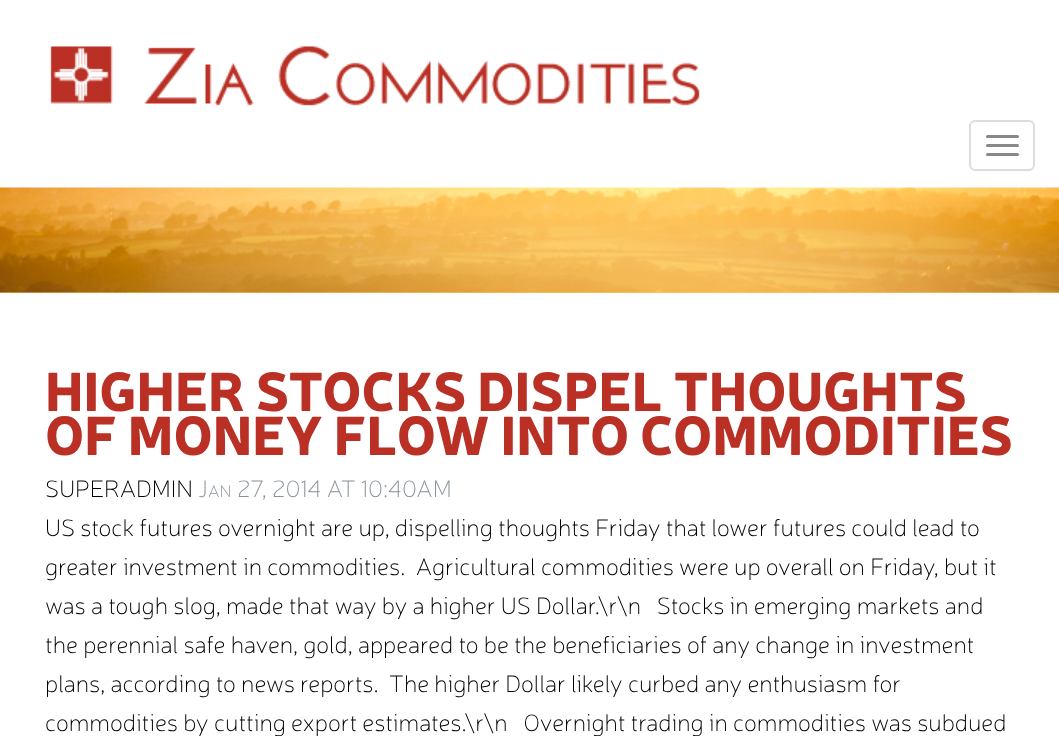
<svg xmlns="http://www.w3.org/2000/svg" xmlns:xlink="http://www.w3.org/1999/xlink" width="1059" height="736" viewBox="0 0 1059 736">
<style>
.cls-1{font:900 54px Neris;fill:#ba3025}
.cls-2{font:100 24px Neris;fill:#000000}
.cls-3{font:100 24px Neris;fill:#899299}
.cls-4{font:100 17px Neris;fill:#899299}
</style>
<rect width="100%" height="100%" fill="#ffffff"/>
<image xlink:href="image0.png" x="50" y="46" width="650" height="60"/>
<rect fill="none" stroke="#dddddd" stroke-width="2" x="970" y="121" width="64" height="49" rx="5"/>
<rect fill="#888888" x="986" y="135" width="33" height="3" rx="1.5"/>
<rect fill="#888888" x="986" y="144" width="33" height="3" rx="1.5"/>
<rect fill="#888888" x="986" y="153" width="33" height="3" rx="1.5"/>
<rect fill="#fcca71" x="0" y="292" width="1059" height="1"/>
<image xlink:href="image1.png" x="0" y="187" width="1059" height="106"/>
<text class="cls-1"><tspan x="45" y="411">HIGHER STOCKS DISPEL THOUGHTS</tspan><tspan x="45" y="455">OF MONEY FLOW INTO COMMODITIES</tspan></text>
<text class="cls-2" x="45" y="497">SUPERADMIN</text>
<text class="cls-3" x="198" y="497">J</text>
<text class="cls-4" x="208" y="497">AN</text>
<text class="cls-3" x="237" y="497">27, 2014 AT 10:40AM</text>
<text class="cls-2" xml:space="preserve"><tspan x="45" y="536">US stock futures overnight are up, dispelling thoughts Friday that lower futures could lead to</tspan><tspan x="45" y="575">greater investment in commodities.  Agricultural commodities were up overall on Friday, but it</tspan><tspan x="45" y="614">was a tough slog, made that way by a higher US Dollar.\r\n   Stocks in emerging markets and</tspan><tspan x="45" y="653">the perennial safe haven, gold, appeared to be the beneficiaries of any change in investment</tspan><tspan x="45" y="692">plans, according to news reports.  The higher Dollar likely curbed any enthusiasm for</tspan><tspan x="45" y="731">commodities by cutting export estimates.\r\n   Overnight trading in commodities was subdued</tspan></text>
</svg>
